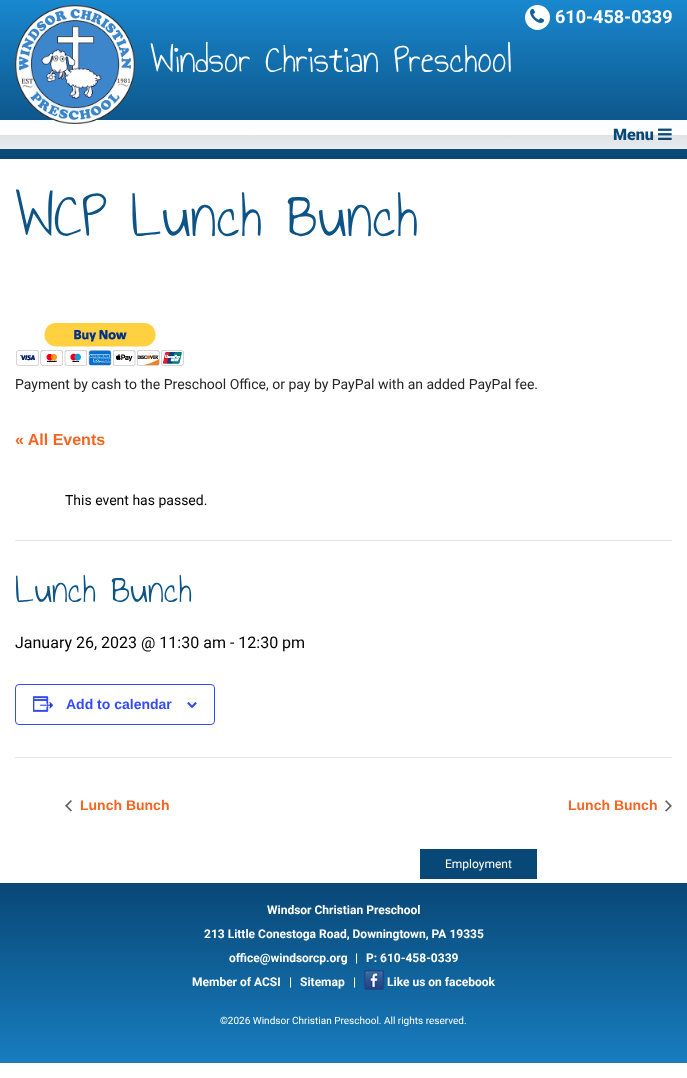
<svg xmlns="http://www.w3.org/2000/svg" xmlns:xlink="http://www.w3.org/1999/xlink" width="687" height="1078" viewBox="0 0 687 1078">
<style>
.cls-1{font:bold 18px Roboto;fill:#ffffff}
.cls-2{font:40px Annie Use Your Telescope;fill:#ffffff}
.cls-3{font:900 16px Roboto;fill:#084978}
.cls-4{font:65px Annie Use Your Telescope;fill:#0c5386}
.cls-5{font:14px Roboto;fill:#252525}
.cls-6{font:bold 16px Liberation Sans;fill:#f26522}
.cls-7{font:14px Roboto;fill:#000000}
.cls-8{font:40px Annie Use Your Telescope;fill:#0c5386}
.cls-9{font:16px Roboto;fill:#000000}
.cls-10{font:bold 14px Liberation Sans;fill:#334aff}
.cls-11{font:bold 14px Liberation Sans;fill:#f26522}
.cls-12{font:12px Roboto;fill:#ffffff}
.cls-13{font:bold 12px Roboto;fill:#ffffff}
.cls-14{font:10px Roboto;fill:#ffffff}
</style>
<defs>
<linearGradient id="g1" gradientUnits="userSpaceOnUse" x1="344" y1="0" x2="344" y2="159"><stop offset="0" stop-color="#1988cf"/><stop offset="1" stop-color="#094776"/></linearGradient>
<linearGradient id="g2" gradientUnits="userSpaceOnUse" x1="344" y1="120" x2="344" y2="149"><stop offset="0" stop-color="#fcfdff"/><stop offset="0.5" stop-color="#fefefe"/><stop offset="0.51" stop-color="#e1e1e1"/><stop offset="1" stop-color="#e8edf1"/></linearGradient>
<linearGradient id="g3" gradientUnits="userSpaceOnUse" x1="344" y1="883" x2="344" y2="1063"><stop offset="0" stop-color="#094776"/><stop offset="1" stop-color="#177dbf"/></linearGradient>
</defs>
<rect width="100%" height="100%" fill="#ffffff"/>
<rect fill="url(#g1)" x="0" y="0" width="687" height="159"/>
<rect fill="url(#g2)" x="0" y="120" width="687" height="29"/>
<image xlink:href="image0.png" x="15" y="5" width="120" height="119"/>
<circle fill="#ffffff" cx="537.5" cy="17.5" r="12.5"/>
<image xlink:href="image1.png" x="530" y="8" width="15" height="15"/>
<image xlink:href="image2.png" x="658" y="128" width="14" height="12"/>
<image xlink:href="image3.png" x="16" y="323" width="168" height="43"/>
<rect fill="#e4e4e4" x="15" y="540" width="657" height="1"/>
<rect fill="none" stroke="#334aff" x="15.5" y="684.5" width="199" height="40" rx="3.5"/>
<image xlink:href="image4.png" x="33" y="696" width="21" height="16"/>
<image xlink:href="image5.png" x="187" y="702" width="10" height="6"/>
<rect fill="#e4e4e4" x="15" y="757" width="657" height="1"/>
<image xlink:href="image6.png" x="65" y="800" width="7" height="12"/>
<image xlink:href="image7.png" x="665" y="800" width="7" height="12"/>
<rect fill="#084876" x="420" y="849" width="117" height="30"/>
<rect fill="url(#g3)" x="0" y="883" width="687" height="180"/>
<image xlink:href="image8.png" x="364" y="970" width="20" height="20"/>
<text class="cls-1" x="555" y="23">610-458-0339</text>
<text class="cls-2" x="150" y="72">Windsor Christian Preschool</text>
<text class="cls-3" x="613" y="140">Menu</text>
<text class="cls-4" x="15" y="236">WCP Lunch Bunch</text>
<text class="cls-5" x="15" y="389">Payment by cash to the Preschool Office, or pay by PayPal with an added PayPal fee.</text>
<text class="cls-6" x="15" y="445">« All Events</text>
<text class="cls-7" x="65" y="505">This event has passed.</text>
<text class="cls-8" x="15" y="602">Lunch Bunch</text>
<text class="cls-9" x="15" y="648">January 26, 2023 @ 11:30 am - 12:30 pm</text>
<text class="cls-10" x="66" y="709">Add to calendar</text>
<text class="cls-11" x="80" y="810">Lunch Bunch</text>
<text class="cls-11" x="568" y="810">Lunch Bunch</text>
<text class="cls-12" x="445" y="868">Employment</text>
<text class="cls-13" x="267" y="914">Windsor Christian Preschool</text>
<text class="cls-13" x="204" y="938">213 Little Conestoga Road, Downingtown, PA 19335</text>
<text class="cls-13" x="229" y="962">office@windsorcp.org</text>
<text class="cls-13" x="355" y="962">|</text>
<text class="cls-13" x="366" y="962">P: 610-458-0339</text>
<text class="cls-13" x="192" y="986">Member of ACSI</text>
<text class="cls-13" x="289" y="986">|</text>
<text class="cls-13" x="300" y="986">Sitemap</text>
<text class="cls-13" x="353" y="986">|</text>
<text class="cls-13" x="387" y="986">Like us on facebook</text>
<text class="cls-14" x="220" y="1024">©2026 Windsor Christian Preschool. All rights reserved.</text>
</svg>
